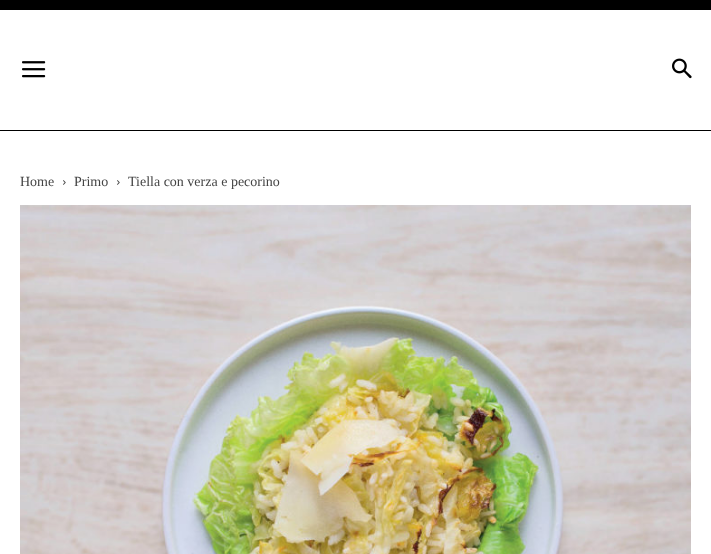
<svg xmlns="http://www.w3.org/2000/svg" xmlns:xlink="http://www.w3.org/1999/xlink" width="711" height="554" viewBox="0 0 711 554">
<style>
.cls-1{font:14px Liberation Serif;fill:#444444}
</style>
<rect width="100%" height="100%" fill="#ffffff"/>
<rect fill="#000000" x="0" y="130" width="711" height="1"/>
<rect fill="#000000" x="0" y="0" width="711" height="10"/>
<image xlink:href="image0.png" x="22" y="61" width="24" height="17"/>
<image xlink:href="image1.png" x="672" y="58" width="20" height="21"/>
<image xlink:href="image2.png" x="63" y="180" width="3" height="5"/>
<image xlink:href="image2.png" x="117" y="180" width="3" height="5"/>
<image xlink:href="image3.png" x="20" y="205" width="671" height="349"/>
<text class="cls-1" x="20" y="186">Home</text>
<text class="cls-1" x="74" y="186">Primo</text>
<text class="cls-1" x="128" y="186">Tiella con verza e pecorino</text>
</svg>
